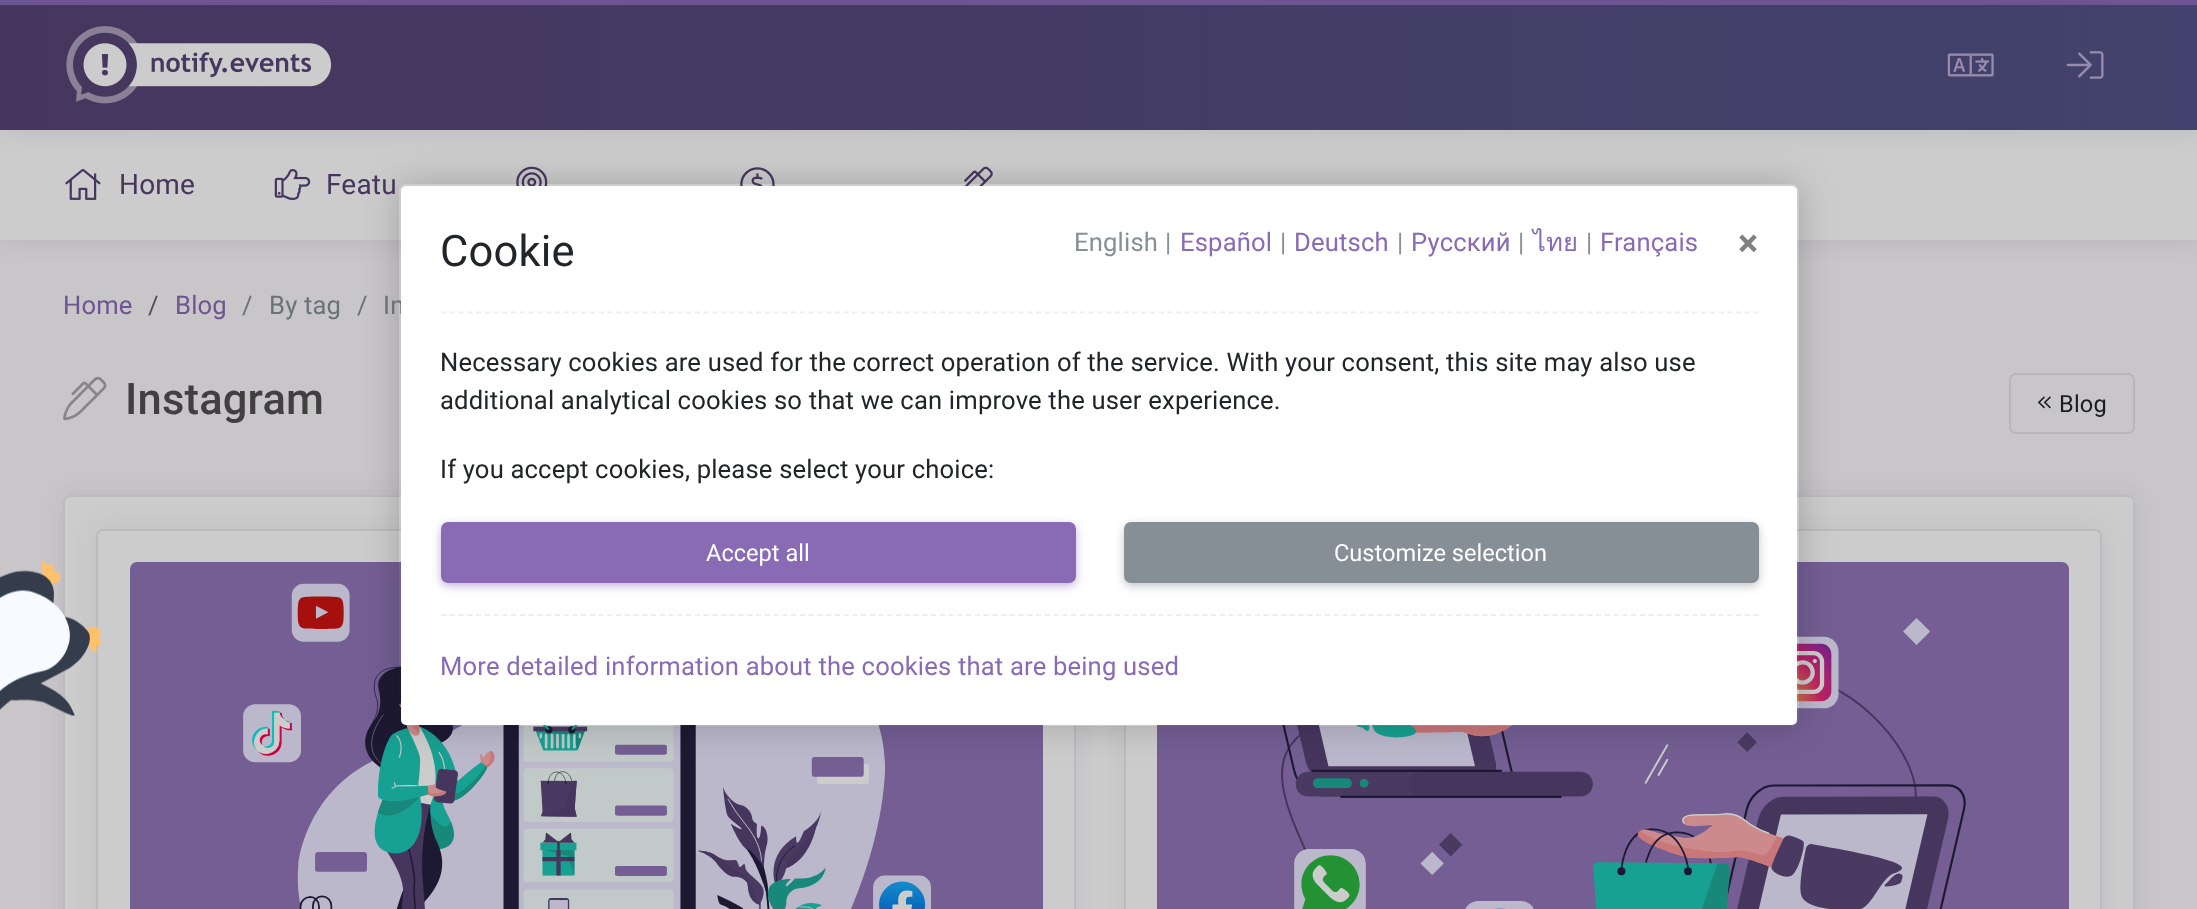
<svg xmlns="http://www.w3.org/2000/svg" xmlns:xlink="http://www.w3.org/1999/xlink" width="2197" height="909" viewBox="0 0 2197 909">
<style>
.cls-1{font:28px Roboto;letter-spacing:0.18px;fill:#46365e}
.cls-2{font:25.6px Roboto;letter-spacing:0.18px;fill:#6d5591}
.cls-3{font:25.6px Roboto;letter-spacing:0.18px;fill:#525252}
.cls-4{font:25.6px Roboto;letter-spacing:0.18px;fill:#6b7278}
.cls-5{font:500 43.5px Roboto;letter-spacing:0.18px;fill:#404040}
.cls-6{font:23.6px Roboto;letter-spacing:0.18px;fill:#1a1e21}
.cls-7{font:43.5px Roboto;letter-spacing:0.18px;fill:#212529}
.cls-8{font:25.6px Roboto;letter-spacing:0.18px;fill:#868e96}
.cls-9{font:25.6px Roboto;letter-spacing:0.18px;fill:#886ab5}
.cls-10{font:25.6px Loma;letter-spacing:0.18px;fill:#886ab5}
.cls-11{font:bold 38px Roboto;fill:#808080}
.cls-12{font:25.6px Roboto;letter-spacing:0.18px;fill:#212529}
.cls-13{font:23.6px Roboto;fill:#ffffff}
</style>
<defs>
<linearGradient id="g1" gradientUnits="userSpaceOnUse" x1="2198" y1="65" x2="0" y2="65"><stop offset="0" stop-color="#41426d"/><stop offset="1" stop-color="#46365e"/></linearGradient>
<clipPath id="clip1"><path d="M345 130H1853V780H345ZM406 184H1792C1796 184 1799 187 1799 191V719C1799 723 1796 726 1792 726H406C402 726 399 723 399 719V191C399 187 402 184 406 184Z" clip-rule="evenodd"/></clipPath>
</defs>
<rect width="100%" height="100%" fill="#c8c6c9"/>
<rect fill="#453163" fill-opacity="0.13" filter="blur(12px)" x="0" y="130" width="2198" height="110"/>
<rect fill="#cccccc" x="0" y="130" width="2197" height="110"/>
<image xlink:href="image5.png" x="516" y="166" width="32" height="20"/>
<image xlink:href="image7.png" x="964" y="166" width="29" height="20"/>
<rect fill="#453163" fill-opacity="0.13" filter="blur(12px)" x="0" y="0" width="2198" height="130"/>
<rect fill="#6d5591" x="0" y="0" width="2197" height="5"/>
<rect fill="url(#g1)" x="0" y="5" width="2197" height="125"/>
<image xlink:href="image0.png" x="66" y="26" width="266" height="78"/>
<image xlink:href="image1.png" x="1947" y="53" width="47" height="24"/>
<image xlink:href="image2.png" x="2066" y="51" width="38" height="28"/>
<image xlink:href="image3.png" x="65" y="169" width="36" height="31"/>
<image xlink:href="image4.png" x="274" y="169" width="37" height="31"/>
<image xlink:href="image6.png" x="740" y="167" width="35" height="19"/>
<image xlink:href="image8.png" x="63" y="376" width="44" height="45"/>
<rect fill="none" stroke="#b7b7b7" stroke-width="2" x="2010" y="374" width="124" height="59" rx="6"/>
<image xlink:href="image9.png" x="2038" y="396" width="13" height="13"/>
<rect fill="#3b2a56" fill-opacity="0.08" filter="blur(11.5px)" x="63" y="495" width="2072" height="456" rx="7"/>
<rect fill="#cccccc" x="63" y="495" width="2072" height="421" rx="7"/>
<rect fill="none" stroke="#000000" stroke-opacity="0.08" stroke-width="2" x="64" y="496" width="2070" height="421" rx="6"/>
<rect fill="#3b2a56" fill-opacity="0.08" filter="blur(11.5px)" x="96" y="529" width="980" height="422" rx="7"/>
<rect fill="#cccccc" stroke="#bcbcbc" stroke-width="2" x="97" y="530" width="978" height="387" rx="6"/>
<rect fill="#745e93" x="130" y="562" width="913" height="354" rx="7"/>
<image xlink:href="image10.png" x="243" y="576" width="689" height="333"/>
<rect fill="#3b2a56" fill-opacity="0.08" filter="blur(11.5px)" x="1124" y="529" width="978" height="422" rx="7"/>
<rect fill="#cccccc" stroke="#bcbcbc" stroke-width="2" x="1125" y="530" width="976" height="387" rx="6"/>
<rect fill="#745e93" x="1157" y="562" width="912" height="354" rx="7"/>
<image xlink:href="image11.png" x="1262" y="597" width="704" height="312"/>
<image xlink:href="image12.png" x="0" y="560" width="102" height="156"/>
<g clip-path="url(#clip1)">
<rect fill="#000000" fill-opacity="0.2" filter="blur(17.5px)" x="399" y="184" width="1400" height="542" rx="7"/>
</g>
<text class="cls-1" x="119" y="194">Home</text>
<text class="cls-1" x="326" y="194">Featu</text>
<text class="cls-2" x="63" y="314">Home</text>
<text class="cls-3" x="148" y="314">/</text>
<text class="cls-2" x="175" y="314">Blog</text>
<text class="cls-4" x="242" y="314">/</text>
<text class="cls-4" x="269" y="314">By tag</text>
<text class="cls-4" x="357" y="314">/</text>
<text class="cls-4" x="383" y="314">In</text>
<text class="cls-5" x="125" y="414">Instagram</text>
<text class="cls-6" x="2059" y="412">Blog</text>
<rect fill="#ffffff" x="401" y="186" width="1396" height="539" rx="5"/>
<text class="cls-7" x="440" y="266">Cookie</text>
<text class="cls-8" x="1074" y="251">English</text>
<text class="cls-8" x="1165" y="251">|</text>
<text class="cls-9" x="1180" y="251">Español</text>
<text class="cls-8" x="1280" y="251">|</text>
<text class="cls-9" x="1294" y="251">Deutsch</text>
<text class="cls-8" x="1397" y="251">|</text>
<text class="cls-9" x="1411" y="251">Русский</text>
<text class="cls-8" x="1518" y="251">|</text>
<text class="cls-10" x="1533" y="251">ไทย</text>
<text class="cls-8" x="1586" y="251">|</text>
<text class="cls-9" x="1600" y="251">Français</text>
<text class="cls-11" x="1738" y="256">×</text>
<path fill="none" stroke="#eeeeee" stroke-width="1.8" stroke-dasharray="5.25 3.5" d="M441 312.5H1759"/>
<text class="cls-12"><tspan x="440" y="371">Necessary cookies are used for the correct operation of the service. With your consent, this site may also use</tspan><tspan x="440" y="409">additional analytical cookies so that we can improve the user experience.</tspan></text>
<text class="cls-12" x="440" y="478">If you accept cookies, please select your choice:</text>
<rect fill="#886ab5" fill-opacity="0.5" filter="blur(5px)" x="441" y="525" width="635" height="61" rx="7"/>
<rect fill="#886ab5" stroke="#886ab5" stroke-width="2" x="442" y="523" width="633" height="59" rx="6"/>
<text class="cls-13" x="706" y="561">Accept all</text>
<rect fill="#868e96" fill-opacity="0.5" filter="blur(5px)" x="1124" y="525" width="635" height="61" rx="7"/>
<rect fill="#868e96" stroke="#868e96" stroke-width="2" x="1125" y="523" width="633" height="59" rx="6"/>
<text class="cls-13" x="1334" y="561">Customize selection</text>
<path fill="none" stroke="#eeeeee" stroke-width="1.8" stroke-dasharray="5.25 3.5" d="M441 615H1759"/>
<text class="cls-9" x="440" y="675">More detailed information about the cookies that are being used</text>
</svg>
